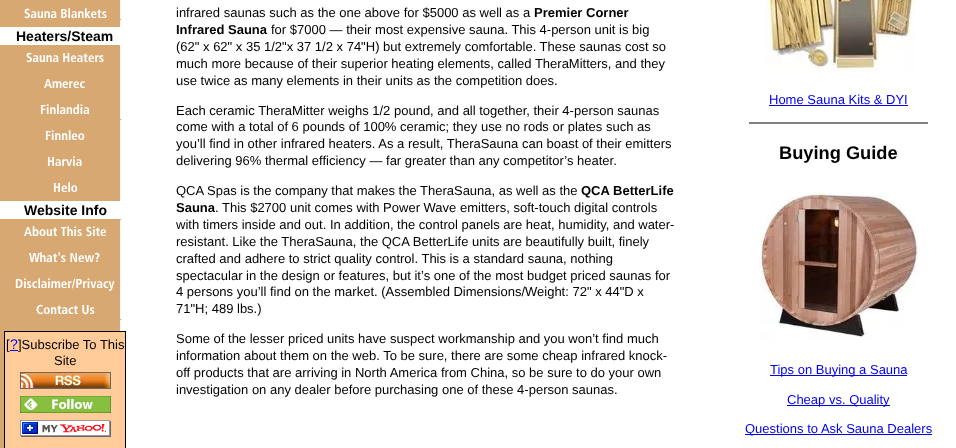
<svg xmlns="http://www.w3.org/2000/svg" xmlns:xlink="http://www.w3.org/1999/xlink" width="956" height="448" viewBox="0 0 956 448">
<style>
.cls-1{font:13px Frutiger;fill:#ffffff}
.cls-2{font:bold 14px Liberation Sans;fill:#000000}
.cls-3{font:13px Liberation Sans;fill:#000000}
.cls-4{font:14px Liberation Sans;fill:#0000ee}
.cls-5{font:bold 13px Liberation Sans;fill:#000000}
.cls-6{font:13px Liberation Sans;fill:#0000ee}
.cls-7{font:bold 18.25px Liberation Sans;fill:#000000}
</style>
<rect width="100%" height="100%" fill="#ffffff"/>
<image xlink:href="image0.png" x="0" y="0" width="123" height="448"/>
<rect fill="#ffffff" x="0" y="27" width="121" height="18"/>
<rect fill="#ffffff" x="0" y="201" width="121" height="18"/>
<rect fill="#ffcc99" stroke="#000000" x="4.5" y="331.5" width="121" height="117"/>
<rect fill="#0000ee" x="10" y="350" width="8" height="1"/>
<image xlink:href="image1.png" x="20" y="372" width="91" height="17"/>
<image xlink:href="image2.png" x="20" y="396" width="91" height="17"/>
<image xlink:href="image3.png" x="20" y="420" width="91" height="17"/>
<image xlink:href="image4.png" x="765" y="0" width="150" height="73"/>
<rect fill="#0000ee" x="769" y="105" width="139" height="1"/>
<rect fill="#808080" x="749" y="122" width="179" height="2"/>
<image xlink:href="image5.png" x="759" y="192" width="160" height="148"/>
<rect fill="#0000ee" x="770" y="375" width="137" height="1"/>
<rect fill="#0000ee" x="787" y="405" width="103" height="1"/>
<rect fill="#0000ee" x="745" y="434" width="187" height="1"/>
<text class="cls-1" x="24" y="18">Sauna Blankets</text>
<text class="cls-2" x="16" y="41">Heaters/Steam</text>
<text class="cls-1" x="26" y="62">Sauna Heaters</text>
<text class="cls-1" x="44" y="88">Amerec</text>
<text class="cls-1" x="40" y="114">Finlandia</text>
<text class="cls-1" x="45" y="140">Finnleo</text>
<text class="cls-1" x="47" y="166">Harvia</text>
<text class="cls-1" x="53" y="192">Helo</text>
<text class="cls-2" x="24" y="215">Website Info</text>
<text class="cls-1" x="24" y="236">About This Site</text>
<text class="cls-1" x="29" y="262">What's New?</text>
<text class="cls-1" x="15" y="288">Disclaimer/Privacy</text>
<text class="cls-1" x="36" y="314">Contact Us</text>
<text class="cls-3" x="6" y="349">[</text>
<text class="cls-4" x="10" y="349">?</text>
<text class="cls-3" x="18" y="349">]Subscribe To This</text>
<text class="cls-3" x="54" y="365">Site</text>
<text class="cls-3" x="176" y="17">infrared saunas such as the one above for $5000 as well as a</text>
<text class="cls-5" x="534" y="17">Premier Corner</text>
<text class="cls-5" x="176" y="34">Infrared Sauna</text>
<text class="cls-3" x="271" y="34">for $7000 — their most expensive sauna. This 4-person unit is big</text>
<text class="cls-3"><tspan x="176" y="51">(62" x 62" x 35 1/2"x 37 1/2 x 74"H) but extremely comfortable. These saunas cost so</tspan><tspan x="176" y="68">much more because of their superior heating elements, called TheraMitters, and they</tspan><tspan x="176" y="85">use twice as many elements in their units as the competition does.</tspan></text>
<text class="cls-3"><tspan x="176" y="115">Each ceramic TheraMitter weighs 1/2 pound, and all together, their 4-person saunas</tspan><tspan x="176" y="131">come with a total of 6 pounds of 100% ceramic; they use no rods or plates such as</tspan><tspan x="176" y="148">you’ll find in other infrared heaters. As a result, TheraSauna can boast of their emitters</tspan><tspan x="176" y="165">delivering 96% thermal efficiency — far greater than any competitor’s heater.</tspan></text>
<text class="cls-3" x="176" y="195">QCA Spas is the company that makes the TheraSauna, as well as the</text>
<text class="cls-5" x="581" y="195">QCA BetterLife</text>
<text class="cls-5" x="176" y="212">Sauna</text>
<text class="cls-3" x="215" y="212">. This $2700 unit comes with Power Wave emitters, soft-touch digital controls</text>
<text class="cls-3"><tspan x="176" y="229">with timers inside and out. In addition, the control panels are heat, humidity, and water-</tspan><tspan x="176" y="246">resistant. Like the TheraSauna, the QCA BetterLife units are beautifully built, finely</tspan><tspan x="176" y="263">crafted and adhere to strict quality control. This is a standard sauna, nothing</tspan><tspan x="176" y="280">spectacular in the design or features, but it’s one of the most budget priced saunas for</tspan><tspan x="176" y="296">4 persons you’ll find on the market. (Assembled Dimensions/Weight: 72" x 44"D x</tspan><tspan x="176" y="313">71"H; 489 lbs.)</tspan></text>
<text class="cls-3"><tspan x="176" y="343">Some of the lesser priced units have suspect workmanship and you won’t find much</tspan><tspan x="176" y="360">information about them on the web. To be sure, there are some cheap infrared knock-</tspan><tspan x="176" y="377">off products that are arriving in North America from China, so be sure to do your own</tspan><tspan x="176" y="394">investigation on any dealer before purchasing one of these 4-person saunas.</tspan></text>
<text class="cls-6" x="769" y="104">Home Sauna Kits &amp; DYI</text>
<text class="cls-7" x="779" y="159">Buying Guide</text>
<text class="cls-6" x="770" y="374">Tips on Buying a Sauna</text>
<text class="cls-6" x="787" y="404">Cheap vs. Quality</text>
<text class="cls-6" x="745" y="433">Questions to Ask Sauna Dealers</text>
</svg>
